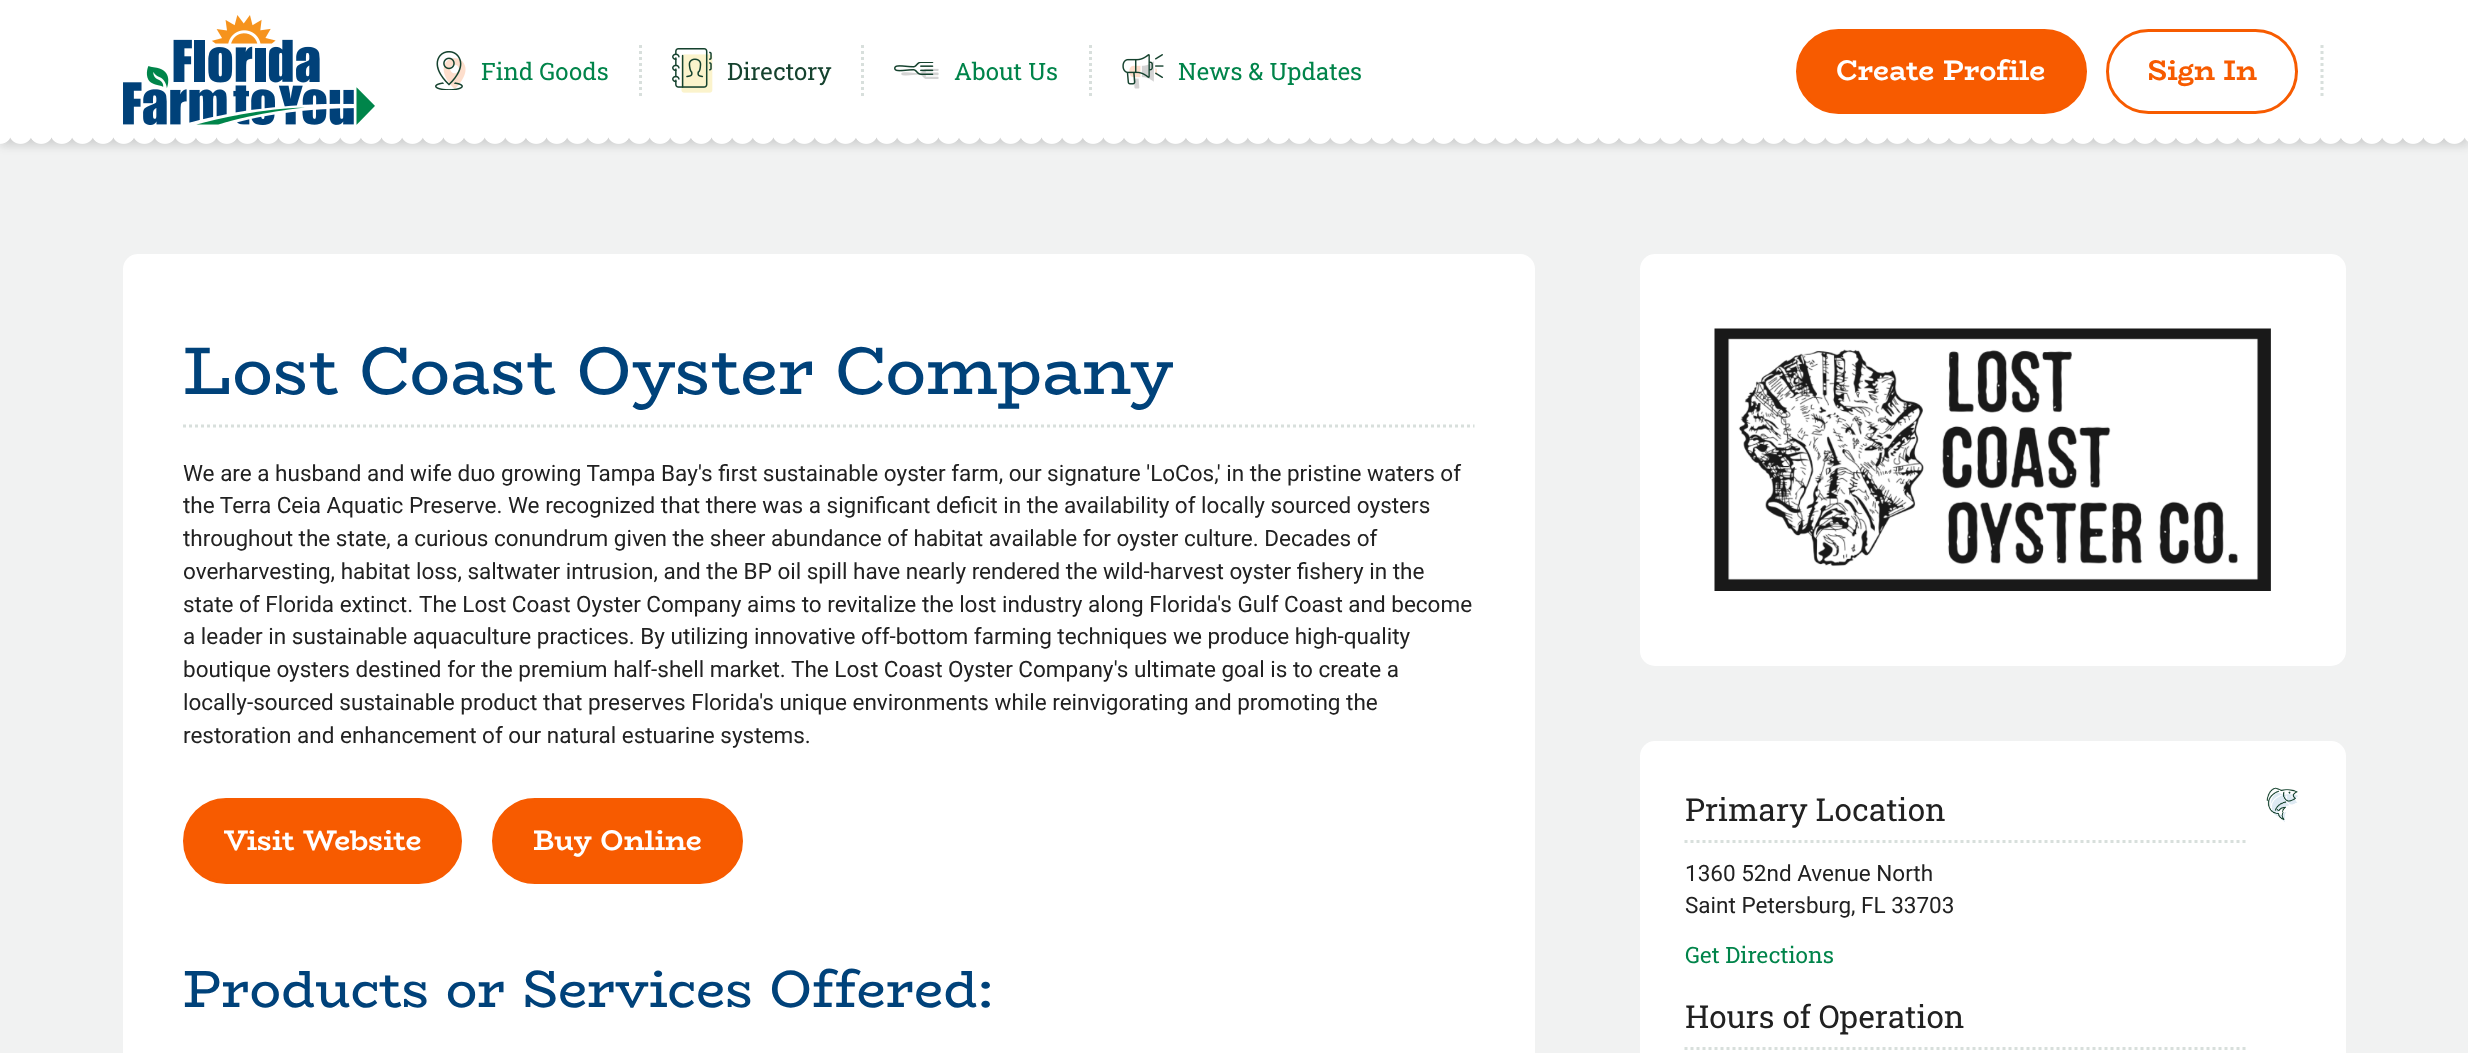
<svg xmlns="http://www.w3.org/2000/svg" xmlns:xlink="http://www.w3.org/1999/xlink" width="2468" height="1053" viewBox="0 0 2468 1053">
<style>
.cls-1{font:24px Roboto Slab;fill:#00844a}
.cls-2{font:24px Roboto Slab;fill:#15422e}
.cls-3{font:bold 28.5px BioRhyme;fill:#ffffff}
.cls-4{font:bold 28.5px BioRhyme;fill:#f75b00}
.cls-5{font:67.5px BioRhyme;fill:#00427a}
.cls-6{font:22.5px Roboto;fill:#212121}
.cls-7{font:52.5px BioRhyme;fill:#00427a}
.cls-8{font:31.5px Roboto Slab;fill:#212121}
.cls-9{font:22.5px Roboto Slab;fill:#00844a}
</style>
<rect width="100%" height="100%" fill="#f1f2f2"/>
<rect fill="#212121" fill-opacity="0.15" filter="blur(4.5px)" x="0" y="12" width="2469" height="134"/>
<rect fill="#ffffff" x="0" y="0" width="2468" height="134"/>
<image xlink:href="image0.png" x="123" y="15" width="252" height="110"/>
<image xlink:href="image1.png" x="435" y="51" width="31" height="39"/>
<path fill="none" stroke="#d8dfdc" stroke-width="3" stroke-dasharray="3 3" d="M640.5 45V97.5"/>
<image xlink:href="image2.png" x="672" y="48" width="41" height="45"/>
<path fill="none" stroke="#d8dfdc" stroke-width="3" stroke-dasharray="3 3" d="M862.5 45V97.5"/>
<image xlink:href="image3.png" x="894" y="62" width="45" height="17"/>
<path fill="none" stroke="#d8dfdc" stroke-width="3" stroke-dasharray="3 3" d="M1090.5 45V97.5"/>
<image xlink:href="image4.png" x="1122" y="54" width="42" height="35"/>
<rect fill="#f75b00" stroke="#f75b00" stroke-width="3" x="1797.5" y="30.5" width="288" height="82" rx="41"/>
<rect fill="none" stroke="#f75b00" stroke-width="3" x="2107.5" y="30.5" width="189" height="82" rx="41"/>
<path fill="none" stroke="#d8dfdc" stroke-width="3" stroke-dasharray="3 3" d="M2322 45V97.5"/>
<image xlink:href="image5.png" x="0" y="134" width="2468" height="10"/>
<rect fill="#ffffff" x="123" y="254" width="1412" height="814" rx="15"/>
<path fill="none" stroke="#d8dfdc" stroke-width="3" stroke-dasharray="3 3" d="M183 426H1474.5"/>
<rect fill="#f75b00" stroke="#f75b00" stroke-width="3" x="184.5" y="799.5" width="276" height="83" rx="41.5"/>
<rect fill="#f75b00" stroke="#f75b00" stroke-width="3" x="493.5" y="799.5" width="248" height="83" rx="41.5"/>
<rect fill="#ffffff" x="1640" y="254" width="706" height="412" rx="15"/>
<image xlink:href="image6.png" x="1714" y="328" width="557" height="263"/>
<rect fill="#ffffff" x="1640" y="741" width="706" height="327" rx="15"/>
<path fill="none" stroke="#d8dfdc" stroke-width="3" stroke-dasharray="3 3" d="M1684.5 841.5H2248.5"/>
<path fill="none" stroke="#d8dfdc" stroke-width="3" stroke-dasharray="3 3" d="M1684.5 1048.5H2248.5"/>
<image xlink:href="image7.png" x="2266" y="787" width="32" height="35"/>
<text class="cls-1" x="481" y="80">Find Goods</text>
<text class="cls-2" x="727" y="80">Directory</text>
<text class="cls-1" x="954" y="80">About Us</text>
<text class="cls-1" x="1178" y="80">News &amp; Updates</text>
<text class="cls-3" x="1836" y="80">Create Profile</text>
<text class="cls-4" x="2147" y="80">Sign In</text>
<text class="cls-5" x="183" y="394">Lost Coast Oyster Company</text>
<text class="cls-6"><tspan x="183" y="481">We are a husband and wife duo growing Tampa Bay's first sustainable oyster farm, our signature 'LoCos,' in the pristine waters of</tspan><tspan x="183" y="513">the Terra Ceia Aquatic Preserve. We recognized that there was a significant deficit in the availability of locally sourced oysters</tspan><tspan x="183" y="546">throughout the state, a curious conundrum given the sheer abundance of habitat available for oyster culture. Decades of</tspan><tspan x="183" y="579">overharvesting, habitat loss, saltwater intrusion, and the BP oil spill have nearly rendered the wild-harvest oyster fishery in the</tspan><tspan x="183" y="612">state of Florida extinct.</tspan></text>
<text class="cls-6" x="419" y="612">The Lost Coast Oyster Company aims to revitalize the lost industry along Florida's Gulf Coast and become</text>
<text class="cls-6"><tspan x="183" y="644">a leader in sustainable aquaculture practices. By utilizing innovative off-bottom farming techniques we produce high-quality</tspan><tspan x="183" y="677">boutique oysters destined for the premium half-shell market.</tspan></text>
<text class="cls-6" x="791" y="677">The Lost Coast Oyster Company's ultimate goal is to create a</text>
<text class="cls-6"><tspan x="183" y="710">locally-sourced sustainable product that preserves Florida's unique environments while reinvigorating and promoting the</tspan><tspan x="183" y="743">restoration and enhancement of our natural estuarine systems.</tspan></text>
<text class="cls-3" x="224" y="850">Visit Website</text>
<text class="cls-3" x="533" y="850">Buy Online</text>
<text class="cls-7" x="183" y="1007">Products or Services Offered:</text>
<text class="cls-8" x="1685" y="821">Primary Location</text>
<text class="cls-6"><tspan x="1685" y="881">1360 52nd Avenue North</tspan><tspan x="1685" y="913">Saint Petersburg, FL 33703</tspan></text>
<text class="cls-9" x="1685" y="963">Get Directions</text>
<text class="cls-8" x="1685" y="1028">Hours of Operation</text>
</svg>
